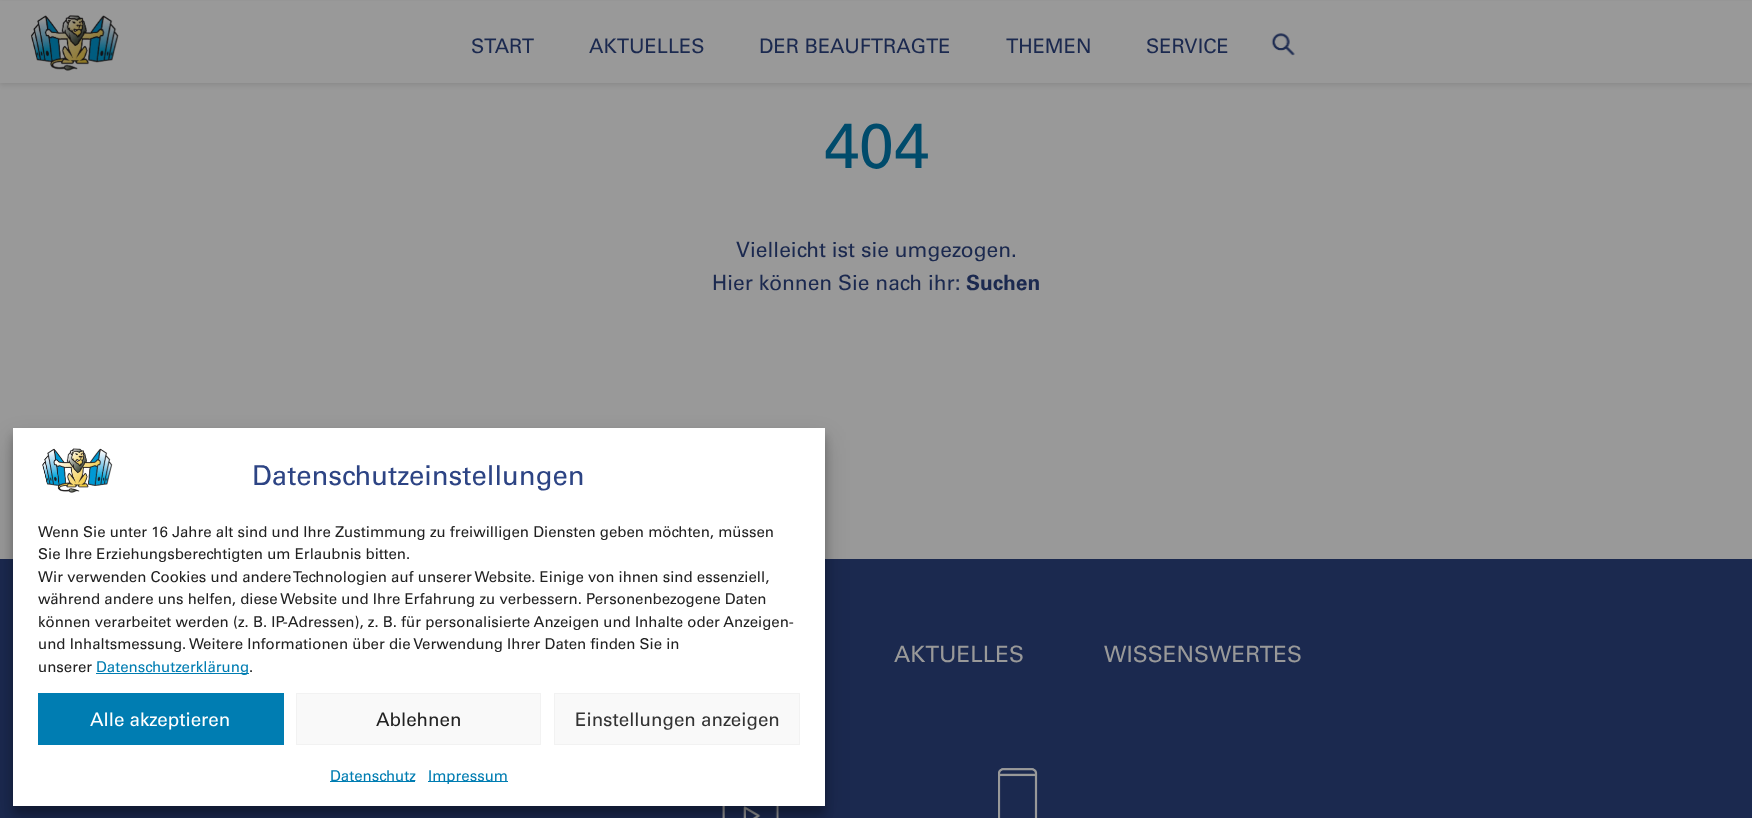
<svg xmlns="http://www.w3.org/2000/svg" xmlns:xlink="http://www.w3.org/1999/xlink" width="1752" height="818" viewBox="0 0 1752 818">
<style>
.cls-1{font:20px Univers;fill:#1b294f}
.cls-2{font:27.5px Univers;fill:#2d4484}
.cls-3{font:15px Univers;fill:#222222}
.cls-4{font:15px Univers;fill:#007db2}
.cls-5{font:18.75px Univers;fill:#ffffff}
.cls-6{font:18.75px Univers;fill:#222222}
.cls-7{font:18.75px Univers;fill:#333333}
.cls-8{font:63px Univers;fill:#004b6b}
.cls-9{font:21px Univers;fill:#1b294f}
.cls-10{font:bold 21px Univers;fill:#1b294f}
.cls-11{font:22.5px Univers;fill:#999999}
</style>
<rect width="100%" height="100%" fill="#999999"/>
<rect fill="#000000" fill-opacity="0.1" filter="blur(2.5px)" x="0" y="3" width="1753" height="82"/>
<rect fill="#999999" x="0" y="1" width="1752" height="82"/>
<image xlink:href="image0.png" x="31" y="15" width="88" height="56"/>
<image xlink:href="image1.png" x="1271" y="33" width="24" height="23"/>
<rect fill="#1b294f" x="0" y="559" width="1752" height="259"/>
<image xlink:href="image3.png" x="722" y="806" width="57" height="12"/>
<rect fill="#000000" fill-opacity="0.23" filter="blur(4px)" x="13" y="435" width="812" height="379"/>
<rect fill="#000000" fill-opacity="0.19" filter="blur(12.5px)" x="13" y="440" width="812" height="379"/>
<rect fill="#ffffff" x="13" y="428" width="812" height="378"/>
<image xlink:href="image2.png" x="42" y="448" width="71" height="45"/>
<rect fill="#007db2" x="96" y="673" width="153" height="1"/>
<rect fill="#007db2" x="38" y="693" width="246" height="52"/>
<rect fill="#f9f9f9" stroke="#f2f2f2" x="296.5" y="693.5" width="244" height="51"/>
<rect fill="#f9f9f9" stroke="#f2f2f2" x="554.5" y="693.5" width="245" height="51"/>
<rect fill="#007db2" x="330" y="781" width="85" height="1"/>
<rect fill="#007db2" x="428" y="781" width="80" height="1"/>
<image xlink:href="image4.png" x="998" y="768" width="40" height="50"/>
<text class="cls-1" x="471" y="53">START</text>
<text class="cls-1" x="589" y="53">AKTUELLES</text>
<text class="cls-1" x="759" y="53">DER BEAUFTRAGTE</text>
<text class="cls-1" x="1006" y="53">THEMEN</text>
<text class="cls-1" x="1146" y="53">SERVICE</text>
<text class="cls-2" x="252" y="485">Datenschutzeinstellungen</text>
<text class="cls-3"><tspan x="38" y="537">Wenn Sie unter 16 Jahre alt sind und Ihre Zustimmung zu freiwilligen Diensten geben möchten, müssen</tspan><tspan x="38" y="559">Sie Ihre Erziehungsberechtigten um Erlaubnis bitten.</tspan><tspan x="38" y="582">Wir verwenden Cookies und andere Technologien auf unserer Website. Einige von ihnen sind essenziell,</tspan><tspan x="38" y="604">während andere uns helfen, diese Website und Ihre Erfahrung zu verbessern. Personenbezogene Daten</tspan><tspan x="38" y="627">können verarbeitet werden (z. B. IP-Adressen), z. B. für personalisierte Anzeigen und Inhalte oder Anzeigen-</tspan><tspan x="38" y="649">und Inhaltsmessung. Weitere Informationen über die Verwendung Ihrer Daten finden Sie in</tspan><tspan x="38" y="672">unserer</tspan></text>
<text class="cls-4" x="96" y="672">Datenschutzerklärung</text>
<text class="cls-3" x="249" y="672">.</text>
<text class="cls-5" x="90" y="726">Alle akzeptieren</text>
<text class="cls-6" x="376" y="726">Ablehnen</text>
<text class="cls-7" x="575" y="726">Einstellungen anzeigen</text>
<text class="cls-4" x="330" y="781">Datenschutz</text>
<text class="cls-4" x="428" y="781">Impressum</text>
<text class="cls-8" x="824" y="168">404</text>
<text class="cls-9" x="736" y="257">Vielleicht ist sie umgezogen.</text>
<text class="cls-9" x="712" y="290">Hier können Sie nach ihr:</text>
<text class="cls-10" x="966" y="290">Suchen</text>
<text class="cls-11" x="894" y="662">AKTUELLES</text>
<text class="cls-11" x="1104" y="662">WISSENSWERTES</text>
</svg>
